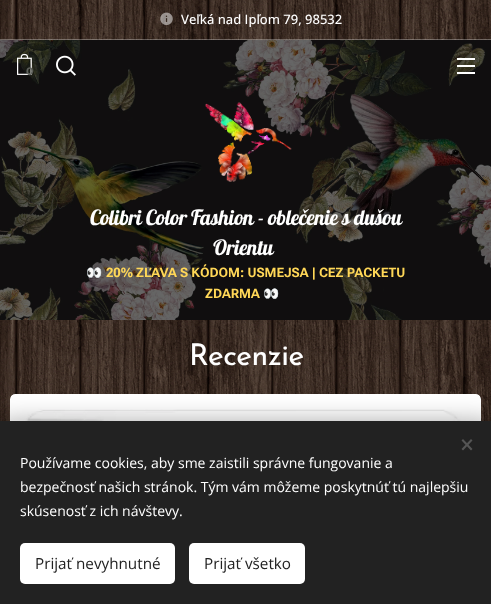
<svg xmlns="http://www.w3.org/2000/svg" xmlns:xlink="http://www.w3.org/1999/xlink" width="491" height="604" viewBox="0 0 491 604">
<style>
.cls-1{font:500 13px Open Sans;fill:#ffffff}
.cls-2{font:bold 11px Montserrat;fill:#5e605b}
.cls-3{font:21px Lobster;letter-spacing:-0.3px;fill:#ffffff}
.cls-4{font:13px Noto Color Emoji;fill:#ffd757}
.cls-5{font:bold 13px Roboto Flex;fill:#ffd757}
.cls-6{font:30px Josefin Sans;letter-spacing:-0.5px;fill:#ffffff}
.cls-7{font:14px Open Sans;fill:#ffffff}
.cls-8{font:15.25px Open Sans;fill:#222222}
</style>
<rect width="100%" height="100%" fill="#ffffff"/>
<image xlink:href="image0.png" x="0" y="0" width="491" height="40"/>
<image xlink:href="image1.png" x="160" y="12" width="13" height="14"/>
<rect fill="#ffffff" fill-opacity="0.3" x="0" y="39" width="491" height="1"/>
<image xlink:href="image2.png" x="0" y="40" width="491" height="280"/>
<image xlink:href="image3.png" x="17" y="53" width="15" height="22"/>
<image xlink:href="image4.png" x="56" y="55" width="20" height="21"/>
<rect fill="#ffffff" x="457" y="65" width="18" height="2"/>
<rect fill="#ffffff" x="457" y="58" width="18" height="2"/>
<rect fill="#ffffff" x="457" y="72" width="18" height="2"/>
<image xlink:href="image5.png" x="205" y="102" width="87" height="80"/>
<image xlink:href="image6.png" x="0" y="320" width="491" height="101"/>
<image xlink:href="image7.png" x="10" y="394" width="471" height="27"/>
<rect fill="#000000" fill-opacity="0.33" filter="blur(12.5px)" x="0" y="421" width="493" height="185"/>
<rect fill="#222222" x="0" y="421" width="491" height="183"/>
<path fill="#555555" d="M461.5 449L471 439L472.5 440.5L463 450.5Z"/>
<path fill="#555555" d="M463 439L472.5 449L471 450.5L461.5 440.5Z"/>
<rect fill="#ffffff" x="20" y="543" width="155" height="41" rx="5"/>
<rect fill="#ffffff" x="189" y="543" width="116" height="41" rx="5"/>
<text class="cls-1" x="181" y="24">Veľká nad Ipľom 79, 98532</text>
<text class="cls-2" x="26" y="75">0</text>
<text class="cls-3" x="90" y="225">Colibri Color Fashion - oblečenie s dušou</text>
<text class="cls-3" x="213" y="255">Orientu</text>
<text class="cls-4" x="86" y="277">👀</text>
<text class="cls-5" x="106" y="277">20% ZĽAVA S KÓDOM: USMEJSA | CEZ PACKETU</text>
<text class="cls-5" x="205" y="298">ZDARMA</text>
<text class="cls-4" x="263" y="298">👀</text>
<text class="cls-6" x="189" y="365">Recenzie</text>
<text class="cls-7"><tspan x="20" y="468">Používame cookies, aby sme zaistili správne fungovanie a</tspan><tspan x="20" y="492">bezpečnosť našich stránok. Tým vám môžeme poskytnúť tú najlepšiu</tspan><tspan x="20" y="516">skúsenosť z ich návštevy.</tspan></text>
<text class="cls-8" x="35" y="569">Prijať nevyhnutné</text>
<text class="cls-8" x="204" y="569">Prijať všetko</text>
</svg>
